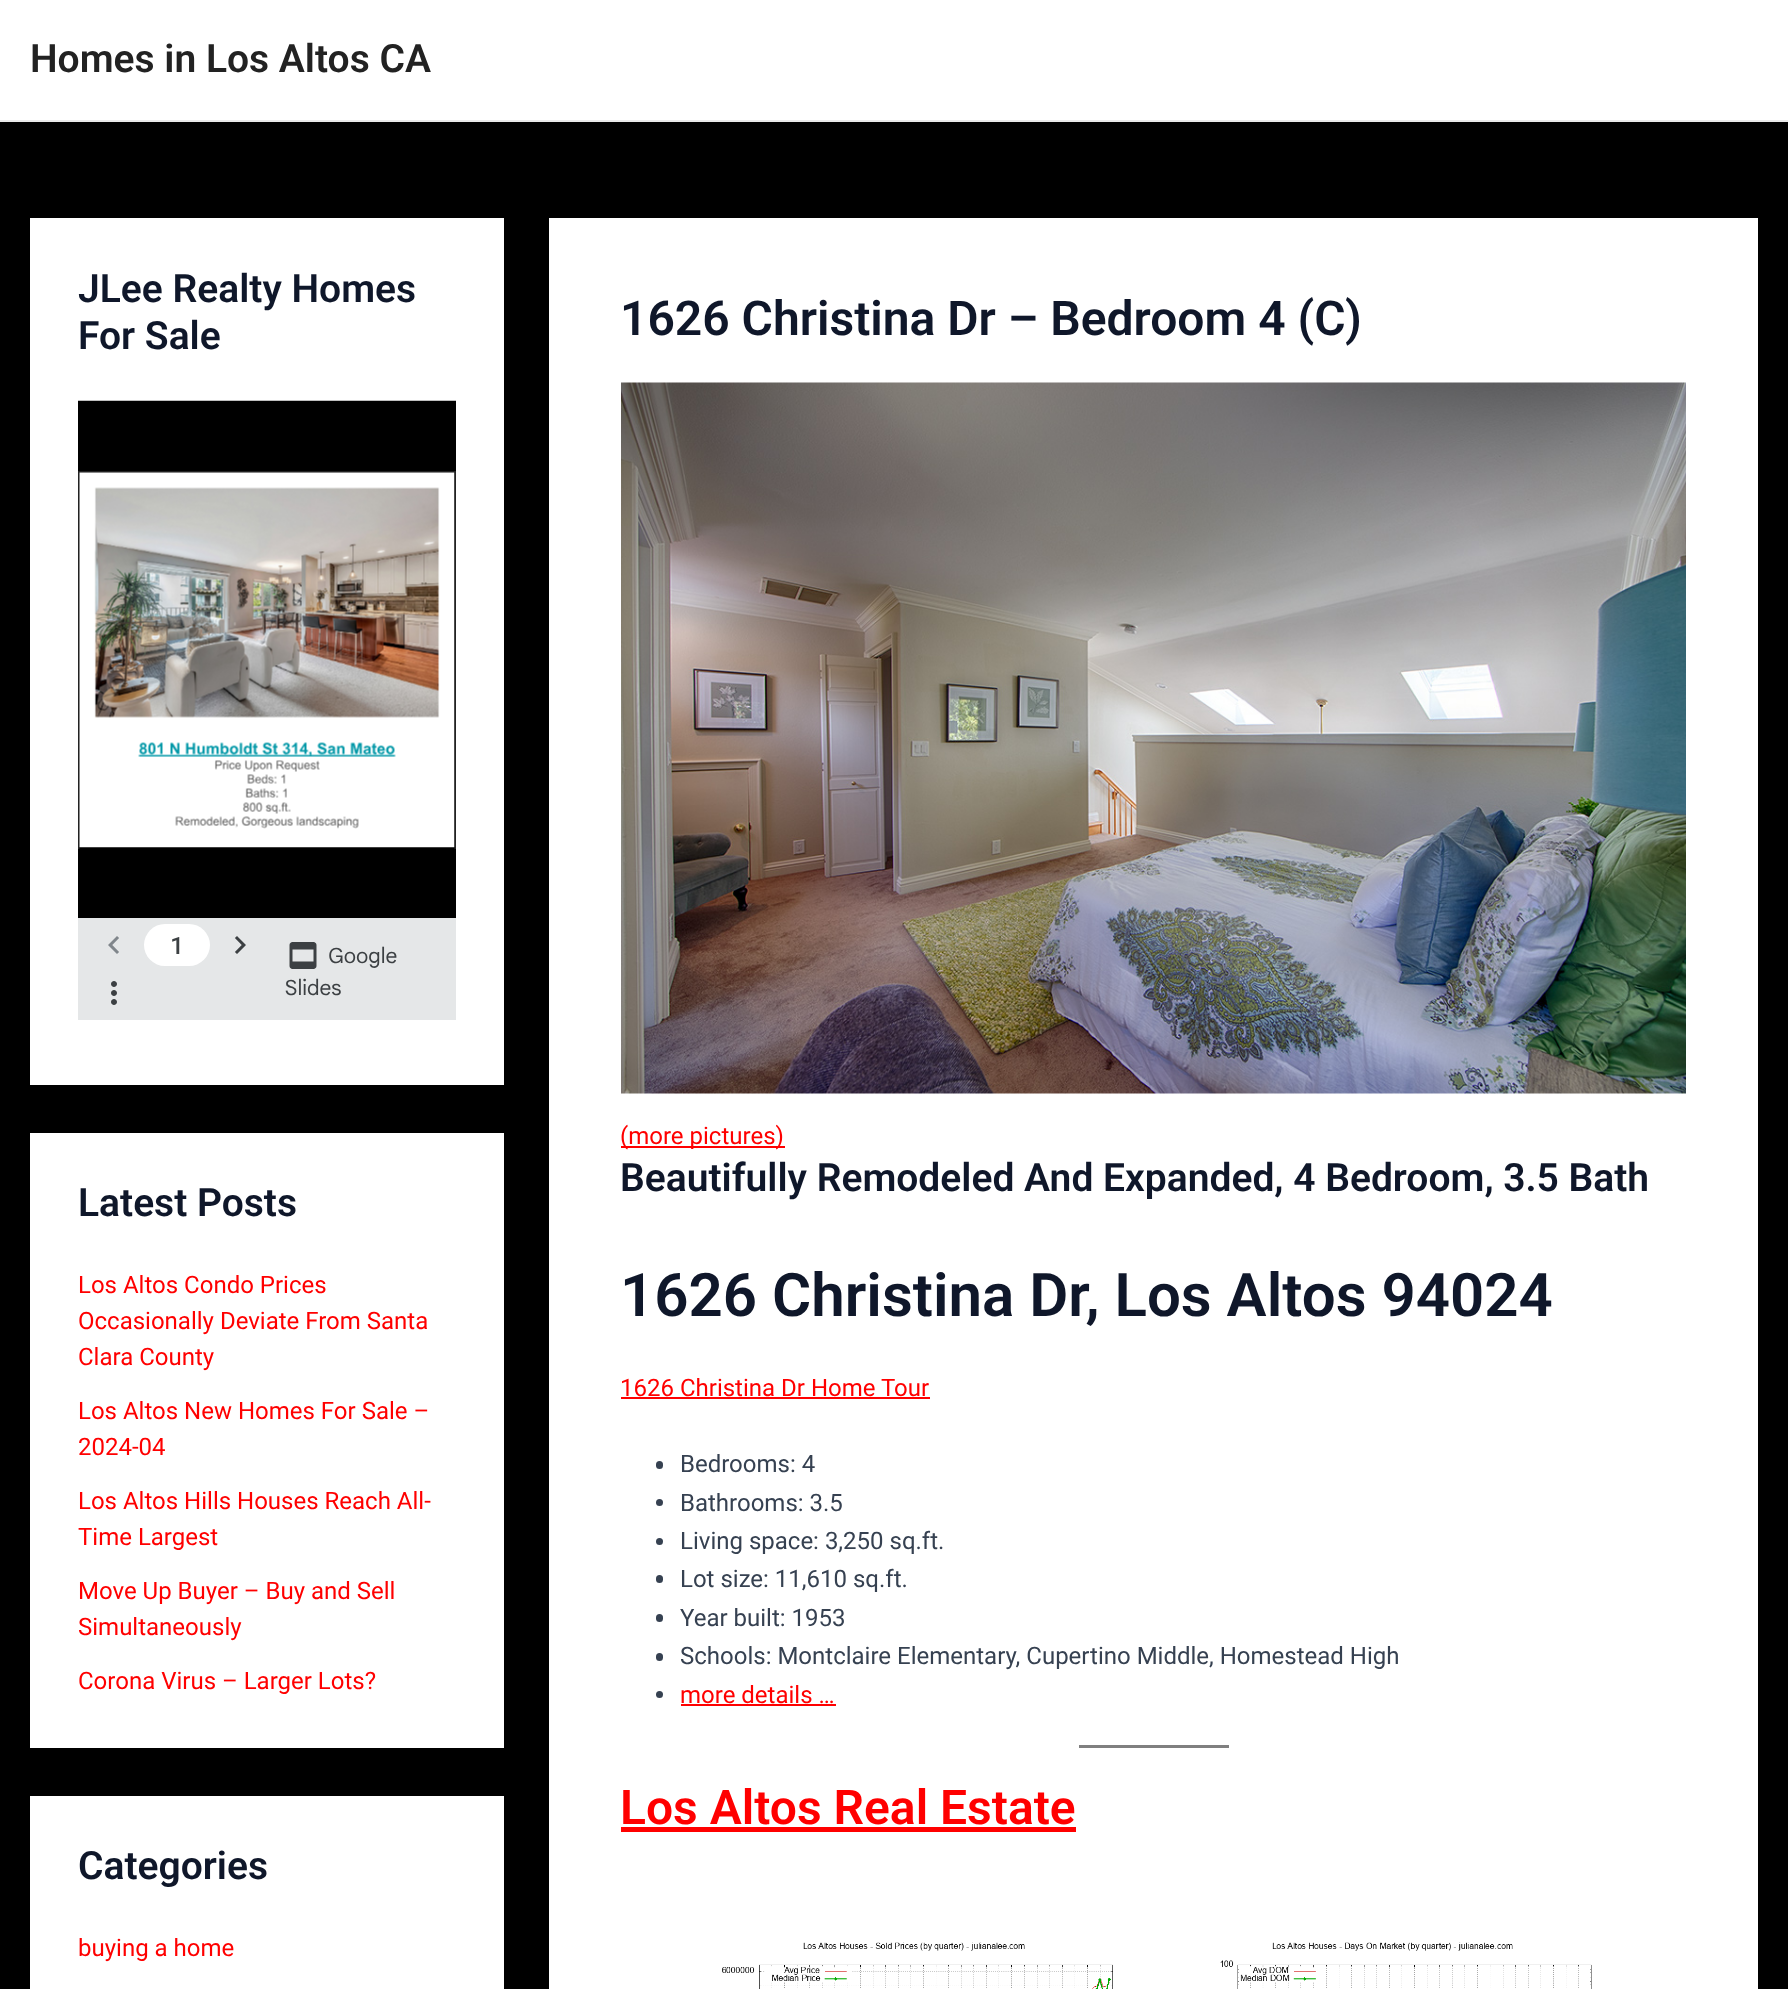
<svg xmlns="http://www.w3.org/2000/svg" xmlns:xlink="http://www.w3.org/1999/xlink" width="1788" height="1989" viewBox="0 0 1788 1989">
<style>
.cls-1{font:600 39px Roboto;fill:#222222}
.cls-2{font:600 39px Roboto;fill:#0f172a}
.cls-3{font:24px Roboto;fill:#ff0000}
.cls-4{font:600 48px Roboto;fill:#0f172a}
.cls-5{font:600 60px Roboto;fill:#0f172a}
.cls-6{font:24px Roboto;fill:#364151}
.cls-7{font:600 48px Roboto;fill:#ff0000}
</style>
<rect width="100%" height="100%" fill="#000000"/>
<rect fill="#ffffff" x="0" y="0" width="1788" height="120"/>
<rect fill="#eaeaea" x="0" y="120" width="1788" height="2"/>
<rect fill="#ffffff" x="30" y="218" width="474" height="867"/>
<image xlink:href="image0.png" x="78" y="400" width="378" height="620"/>
<rect fill="#ffffff" x="30" y="1133" width="474" height="615"/>
<rect fill="#ffffff" x="30" y="1796" width="474" height="193"/>
<rect fill="#ffffff" x="549" y="218" width="1209" height="1771"/>
<image xlink:href="image1.png" x="621" y="382" width="1065" height="712"/>
<rect fill="#ff0000" x="621" y="1146" width="164" height="2"/>
<rect fill="#ff0000" x="621" y="1397" width="309" height="2"/>
<rect fill="#364151" x="656" y="1461" width="7" height="8" rx="3.5"/>
<circle fill="#364151" cx="659.5" cy="1502.5" r="3.5"/>
<circle fill="#364151" cx="659.5" cy="1541.5" r="3.5"/>
<rect fill="#364151" x="656" y="1575" width="7" height="8" rx="3.5"/>
<rect fill="#364151" x="656" y="1614" width="7" height="8" rx="3.5"/>
<rect fill="#364151" x="656" y="1653" width="7" height="8" rx="3.5"/>
<circle fill="#364151" cx="659.5" cy="1694.5" r="3.5"/>
<rect fill="#ff0000" x="681" y="1704" width="155" height="2"/>
<rect fill="#808080" x="1079" y="1745" width="150" height="3"/>
<rect fill="#ff0000" x="621" y="1827" width="455" height="5"/>
<image xlink:href="image2.png" x="722" y="1942" width="391" height="47"/>
<image xlink:href="image3.png" x="1220" y="1942" width="372" height="47"/>
<text class="cls-1" x="30" y="72">Homes in Los Altos CA</text>
<text class="cls-2"><tspan x="78" y="302">JLee Realty Homes</tspan><tspan x="78" y="349">For Sale</tspan></text>
<text class="cls-2" x="78" y="1216">Latest Posts</text>
<text class="cls-3"><tspan x="78" y="1293">Los Altos Condo Prices</tspan><tspan x="78" y="1329">Occasionally Deviate From Santa</tspan><tspan x="78" y="1365">Clara County</tspan></text>
<text class="cls-3"><tspan x="78" y="1419">Los Altos New Homes For Sale –</tspan><tspan x="78" y="1455">2024-04</tspan></text>
<text class="cls-3"><tspan x="78" y="1509">Los Altos Hills Houses Reach All-</tspan><tspan x="78" y="1545">Time Largest</tspan></text>
<text class="cls-3"><tspan x="78" y="1599">Move Up Buyer – Buy and Sell</tspan><tspan x="78" y="1635">Simultaneously</tspan></text>
<text class="cls-3" x="78" y="1689">Corona Virus – Larger Lots?</text>
<text class="cls-2" x="78" y="1879">Categories</text>
<text class="cls-3" x="78" y="1956">buying a home</text>
<text class="cls-4" x="620" y="335">1626 Christina Dr – Bedroom 4 (C)</text>
<text class="cls-3" x="620" y="1144">(more pictures)</text>
<text class="cls-2" x="620" y="1191">Beautifully Remodeled And Expanded, 4 Bedroom, 3.5 Bath</text>
<text class="cls-5" x="620" y="1316">1626 Christina Dr, Los Altos 94024</text>
<text class="cls-3" x="620" y="1396">1626 Christina Dr Home Tour</text>
<text class="cls-6"><tspan x="680" y="1472">Bedrooms: 4</tspan><tspan x="680" y="1511">Bathrooms: 3.5</tspan><tspan x="680" y="1549">Living space: 3,250 sq.ft.</tspan><tspan x="680" y="1587">Lot size: 11,610 sq.ft.</tspan><tspan x="680" y="1626">Year built: 1953</tspan><tspan x="680" y="1664">Schools: Montclaire Elementary, Cupertino Middle, Homestead High</tspan></text>
<text class="cls-3" x="680" y="1703">more details …</text>
<text class="cls-7" x="620" y="1824">Los Altos Real Estate</text>
</svg>
